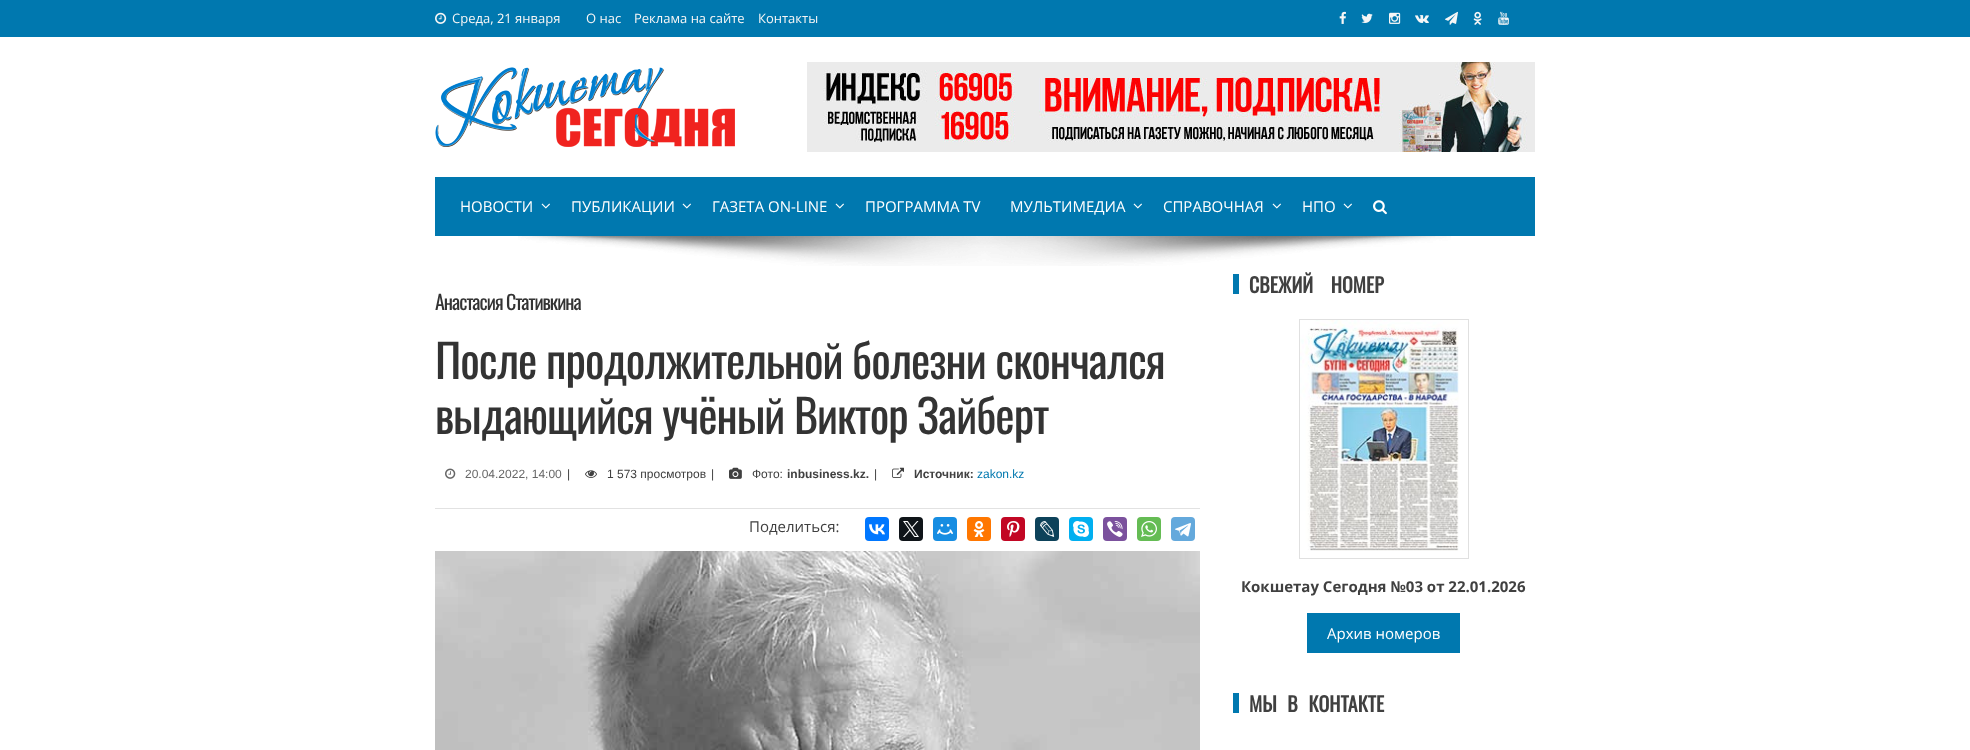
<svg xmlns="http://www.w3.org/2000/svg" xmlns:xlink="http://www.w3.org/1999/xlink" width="1970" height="750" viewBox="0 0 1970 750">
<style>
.cls-1{font:13px Open Sans;fill:#f6f6f6}
.cls-2{font:15px Open Sans;fill:#ffffff}
.cls-3{font:20px Oswald;letter-spacing:-1px;fill:#333333}
.cls-4{font:46px Oswald;letter-spacing:-1px;fill:#333333}
.cls-5{font:12px Liberation Sans;fill:#666666}
.cls-6{font:12px Liberation Sans;fill:#404040}
.cls-7{font:bold 12px Liberation Sans;fill:#404040}
.cls-8{font:12px Liberation Sans;fill:#0078af}
.cls-9{font:15px Open Sans;fill:#404040}
.cls-10{font:bold 20px Oswald;fill:#404040}
.cls-11{font:bold 15px Open Sans;fill:#404040}
</style>
<rect width="100%" height="100%" fill="#ffffff"/>
<rect fill="#0078af" x="0" y="0" width="1970" height="37"/>
<image xlink:href="image0.png" x="435" y="12" width="12" height="12"/>
<image xlink:href="image1.png" x="1339" y="11" width="7" height="13"/>
<image xlink:href="image2.png" x="1361" y="13" width="12" height="10"/>
<image xlink:href="image3.png" x="1389" y="12" width="12" height="12"/>
<image xlink:href="image4.png" x="1415" y="15" width="14" height="8"/>
<image xlink:href="image5.png" x="1445" y="11" width="13" height="14"/>
<image xlink:href="image6.png" x="1473" y="11" width="9" height="14"/>
<image xlink:href="image7.png" x="1498" y="11" width="11" height="14"/>
<image xlink:href="image8.png" x="435" y="67" width="300" height="80"/>
<image xlink:href="image9.png" x="807" y="62" width="728" height="90"/>
<rect fill="#0078af" x="435" y="177" width="1100" height="59"/>
<image xlink:href="image10.png" x="541" y="203" width="9" height="6"/>
<image xlink:href="image10.png" x="682" y="203" width="9" height="6"/>
<image xlink:href="image10.png" x="835" y="203" width="9" height="6"/>
<image xlink:href="image10.png" x="1133" y="203" width="9" height="6"/>
<image xlink:href="image10.png" x="1272" y="203" width="9" height="6"/>
<image xlink:href="image10.png" x="1343" y="203" width="9" height="6"/>
<image xlink:href="image11.png" x="1373" y="200" width="14" height="15"/>
<image xlink:href="image12.png" x="518" y="236" width="933" height="30"/>
<rect fill="#e2e2e2" x="435" y="508" width="765" height="1"/>
<image xlink:href="image13.png" x="445" y="468" width="11" height="11"/>
<image xlink:href="image14.png" x="585" y="470" width="12" height="8"/>
<image xlink:href="image15.png" x="729" y="467" width="13" height="12"/>
<image xlink:href="image16.png" x="892" y="467" width="12" height="11"/>
<rect fill="#0077ff" x="865" y="517" width="24" height="24" rx="4"/>
<image xlink:href="image17.png" x="869" y="524" width="16" height="11"/>
<rect fill="#0f1419" x="899" y="517" width="24" height="24" rx="4"/>
<image xlink:href="image18.png" x="903" y="521" width="16" height="16"/>
<rect fill="#168de2" x="933" y="517" width="24" height="24" rx="4"/>
<image xlink:href="image19.png" x="937" y="524" width="16" height="11"/>
<rect fill="#ff7700" x="967" y="517" width="24" height="24" rx="4"/>
<image xlink:href="image20.png" x="973" y="521" width="12" height="16"/>
<rect fill="#c20724" x="1001" y="517" width="24" height="24" rx="4"/>
<image xlink:href="image21.png" x="1007" y="521" width="13" height="16"/>
<rect fill="#0d425a" x="1035" y="517" width="24" height="24" rx="4"/>
<image xlink:href="image22.png" x="1040" y="521" width="15" height="16"/>
<rect fill="#00aff0" x="1069" y="517" width="24" height="24" rx="4"/>
<image xlink:href="image23.png" x="1073" y="521" width="16" height="16"/>
<rect fill="#7b519d" x="1103" y="517" width="24" height="24" rx="4"/>
<image xlink:href="image24.png" x="1107" y="521" width="16" height="16"/>
<rect fill="#65bc54" x="1137" y="517" width="24" height="24" rx="4"/>
<image xlink:href="image25.png" x="1141" y="521" width="16" height="16"/>
<rect fill="#64a9dc" x="1171" y="517" width="24" height="24" rx="4"/>
<image xlink:href="image26.png" x="1175" y="523" width="16" height="14"/>
<image xlink:href="image27.png" x="435" y="551" width="765" height="199"/>
<rect fill="#0078af" x="1233" y="274" width="6" height="20"/>
<rect fill="none" stroke="#e0e0e0" x="1299.5" y="319.5" width="169" height="239"/>
<image xlink:href="image28.png" x="1300" y="320" width="159" height="231"/>
<rect fill="#0078af" x="1307" y="613" width="153" height="40"/>
<rect fill="#0078af" x="1233" y="693" width="6" height="20"/>
<text class="cls-1" x="452" y="23">Среда, 21 января</text>
<text class="cls-1" x="586" y="23">О нас</text>
<text class="cls-1" x="634" y="23">Реклама на сайте</text>
<text class="cls-1" x="758" y="23">Контакты</text>
<text class="cls-2" x="460" y="212">НОВОСТИ</text>
<text class="cls-2" x="571" y="212">ПУБЛИКАЦИИ</text>
<text class="cls-2" x="712" y="212">ГАЗЕТА ON-LINE</text>
<text class="cls-2" x="865" y="212">ПРОГРАММА TV</text>
<text class="cls-2" x="1010" y="212">МУЛЬТИМЕДИА</text>
<text class="cls-2" x="1163" y="212">СПРАВОЧНАЯ</text>
<text class="cls-2" x="1302" y="212">НПО</text>
<text class="cls-3" x="435" y="310">Анастасия Стативкина</text>
<text class="cls-4"><tspan x="435" y="379">После продолжительной болезни скончался</tspan><tspan x="435" y="434">выдающийся учёный Виктор Зайберт</tspan></text>
<text class="cls-5" x="465" y="478">20.04.2022, 14:00</text>
<text class="cls-6" x="567" y="478">|</text>
<text class="cls-6" x="607" y="478">1 573 просмотров</text>
<text class="cls-6" x="711" y="478">|</text>
<text class="cls-6" x="752" y="478">Фото:</text>
<text class="cls-7" x="787" y="478">inbusiness.kz.</text>
<text class="cls-6" x="874" y="478">|</text>
<text class="cls-7" x="914" y="478">Источник:</text>
<text class="cls-8" x="977" y="478">zakon.kz</text>
<text class="cls-9" x="749" y="532">Поделиться:</text>
<text class="cls-10" x="1249" y="293" word-spacing="13">СВЕЖИЙ НОМЕР</text>
<text class="cls-11" x="1241" y="592">Кокшетау Сегодня №03 от 22.01.2026</text>
<text class="cls-2" x="1327" y="639">Архив номеров</text>
<text class="cls-10" x="1249" y="712" word-spacing="6">МЫ В КОНТАКТЕ</text>
</svg>
